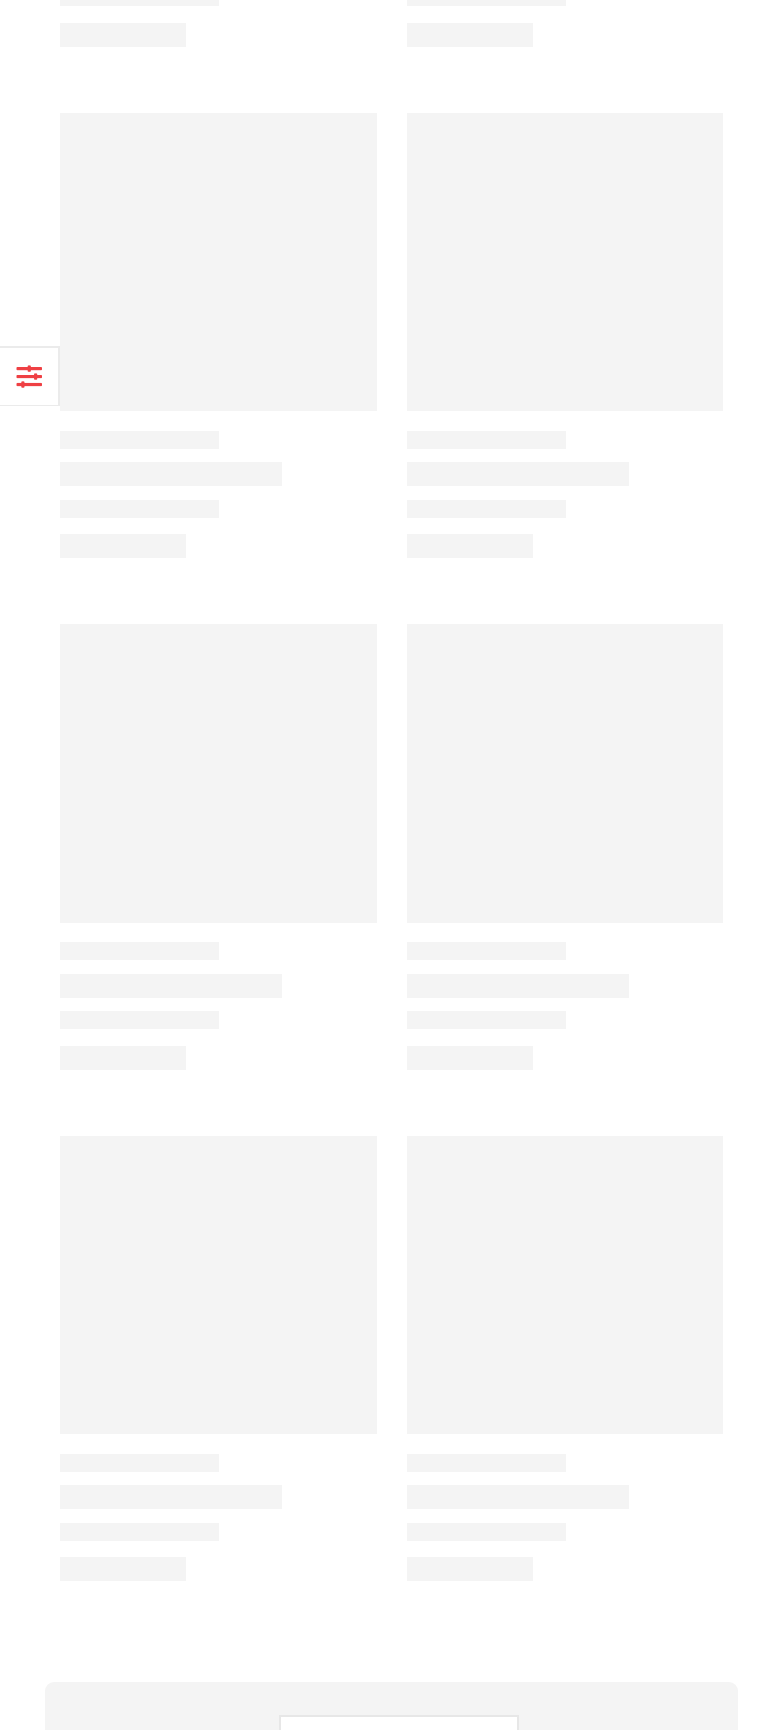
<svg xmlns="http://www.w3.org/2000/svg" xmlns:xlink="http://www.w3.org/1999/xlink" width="783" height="1730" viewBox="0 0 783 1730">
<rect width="100%" height="100%" fill="#ffffff"/>
<path fill="#ebebeb" d="M0 346H60L58 348H0Z"/>
<path fill="#000000" fill-opacity="0.08" d="M60 346V406L58 405V348Z"/>
<path fill="#000000" fill-opacity="0.08" d="M60 406H0V405H58Z"/>
<image xlink:href="image0.png" x="16" y="365" width="26" height="23"/>
<rect fill="#f4f4f4" x="60" y="23" width="126" height="24"/>
<rect fill="#f4f4f4" x="60" y="0" width="159" height="6"/>
<rect fill="#f4f4f4" x="407" y="23" width="126" height="24"/>
<rect fill="#f4f4f4" x="407" y="0" width="159" height="6"/>
<rect fill="#f4f4f4" x="60" y="534" width="126" height="24"/>
<rect fill="#f4f4f4" x="60" y="500" width="159" height="18"/>
<rect fill="#f4f4f4" x="60" y="462" width="222" height="24"/>
<rect fill="#f4f4f4" x="60" y="431" width="159" height="18"/>
<rect fill="#f4f4f4" x="60" y="113" width="317" height="298"/>
<rect fill="#f4f4f4" x="407" y="534" width="126" height="24"/>
<rect fill="#f4f4f4" x="407" y="500" width="159" height="18"/>
<rect fill="#f4f4f4" x="407" y="462" width="222" height="24"/>
<rect fill="#f4f4f4" x="407" y="431" width="159" height="18"/>
<rect fill="#f4f4f4" x="407" y="113" width="316" height="298"/>
<rect fill="#f4f4f4" x="60" y="1046" width="126" height="24"/>
<rect fill="#f4f4f4" x="60" y="1011" width="159" height="18"/>
<rect fill="#f4f4f4" x="60" y="974" width="222" height="24"/>
<rect fill="#f4f4f4" x="60" y="942" width="159" height="18"/>
<rect fill="#f4f4f4" x="60" y="624" width="317" height="299"/>
<rect fill="#f4f4f4" x="407" y="1046" width="126" height="24"/>
<rect fill="#f4f4f4" x="407" y="1011" width="159" height="18"/>
<rect fill="#f4f4f4" x="407" y="974" width="222" height="24"/>
<rect fill="#f4f4f4" x="407" y="942" width="159" height="18"/>
<rect fill="#f4f4f4" x="407" y="624" width="316" height="299"/>
<rect fill="#f4f4f4" x="60" y="1557" width="126" height="24"/>
<rect fill="#f4f4f4" x="60" y="1523" width="159" height="18"/>
<rect fill="#f4f4f4" x="60" y="1485" width="222" height="24"/>
<rect fill="#f4f4f4" x="60" y="1454" width="159" height="18"/>
<rect fill="#f4f4f4" x="60" y="1136" width="317" height="298"/>
<rect fill="#f4f4f4" x="407" y="1557" width="126" height="24"/>
<rect fill="#f4f4f4" x="407" y="1523" width="159" height="18"/>
<rect fill="#f4f4f4" x="407" y="1485" width="222" height="24"/>
<rect fill="#f4f4f4" x="407" y="1454" width="159" height="18"/>
<rect fill="#f4f4f4" x="407" y="1136" width="316" height="298"/>
<rect fill="#f4f4f4" x="45" y="1682" width="693" height="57" rx="9"/>
<rect fill="#ffffff" stroke="#e7e7e7" stroke-width="2" x="280" y="1716" width="238" height="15"/>
</svg>
